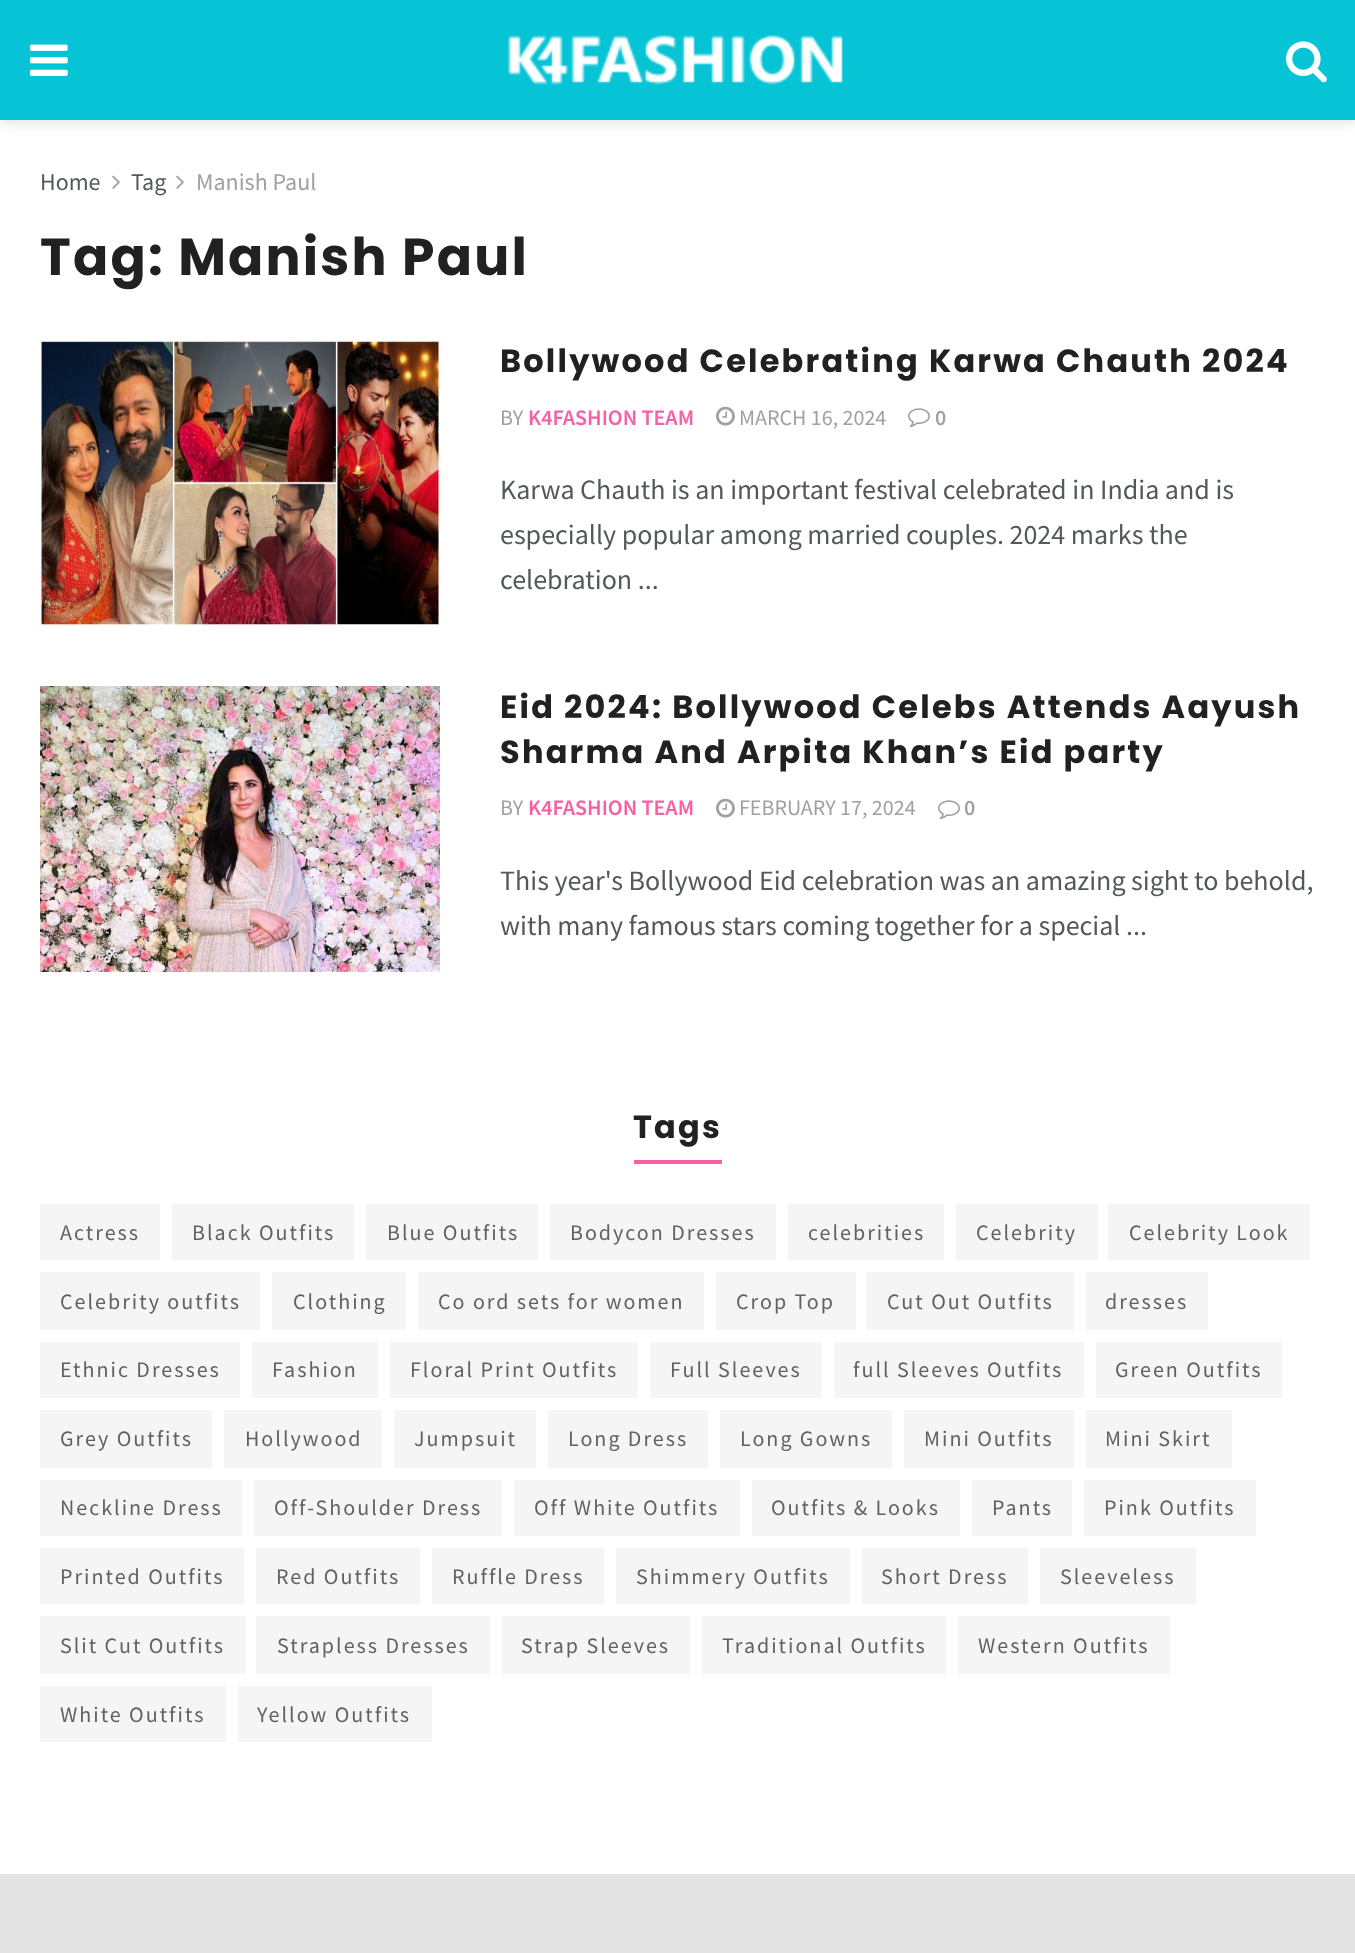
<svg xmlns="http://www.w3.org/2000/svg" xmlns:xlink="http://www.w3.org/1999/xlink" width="1355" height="1953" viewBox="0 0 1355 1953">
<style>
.cls-1{font:24px Source Sans Pro;fill:#53585c}
.cls-2{font:24px Source Sans Pro;fill:#a0a0a0}
.cls-3{font:bold 52px Poppins;letter-spacing:2.2px;fill:#212121}
.cls-4{font:bold 32px Poppins;letter-spacing:2.2px;fill:#212121}
.cls-5{font:22px Source Sans Pro;fill:#a0a0a0}
.cls-6{font:600 22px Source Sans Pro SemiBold;fill:#f860a3}
.cls-7{font:600 22px Source Sans Pro SemiBold;fill:#a0a0a0}
.cls-8{font:28px Source Sans Pro;fill:#53585c}
.cls-9{font:22px Source Sans Pro;letter-spacing:2px;fill:#616161}
</style>
<rect width="100%" height="100%" fill="#ffffff"/>
<rect fill="#000000" fill-opacity="0.1" filter="blur(6px)" x="0" y="4" width="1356" height="120"/>
<rect fill="#06c4d6" x="0" y="0" width="1355" height="120"/>
<image xlink:href="image0.png" x="30" y="44" width="38" height="32"/>
<image xlink:href="image1.png" x="508" y="35" width="335" height="50"/>
<image xlink:href="image2.png" x="1286" y="41" width="41" height="42"/>
<image xlink:href="image3.png" x="112" y="175" width="8" height="14"/>
<image xlink:href="image3.png" x="176" y="175" width="8" height="14"/>
<image xlink:href="image4.png" x="40" y="340" width="400" height="286"/>
<image xlink:href="image5.png" x="716" y="406" width="19" height="20"/>
<image xlink:href="image6.png" x="908" y="408" width="22" height="20"/>
<image xlink:href="image7.png" x="40" y="686" width="400" height="286"/>
<image xlink:href="image5.png" x="716" y="798" width="19" height="20"/>
<image xlink:href="image6.png" x="938" y="800" width="22" height="20"/>
<rect fill="#f860a3" x="634" y="1160" width="88" height="4"/>
<rect fill="#f5f5f5" x="40" y="1204" width="120" height="56"/>
<rect fill="#f5f5f5" x="172" y="1204" width="182" height="56"/>
<rect fill="#f5f5f5" x="366" y="1204" width="172" height="56"/>
<rect fill="#f5f5f5" x="550" y="1204" width="226" height="56"/>
<rect fill="#f5f5f5" x="788" y="1204" width="156" height="56"/>
<rect fill="#f5f5f5" x="956" y="1204" width="142" height="56"/>
<rect fill="#f5f5f5" x="1108" y="1204" width="202" height="56"/>
<rect fill="#f5f5f5" x="40" y="1272" width="220" height="58"/>
<rect fill="#f5f5f5" x="272" y="1272" width="134" height="58"/>
<rect fill="#f5f5f5" x="418" y="1272" width="286" height="58"/>
<rect fill="#f5f5f5" x="716" y="1272" width="140" height="58"/>
<rect fill="#f5f5f5" x="866" y="1272" width="208" height="58"/>
<rect fill="#f5f5f5" x="1086" y="1272" width="122" height="58"/>
<rect fill="#f5f5f5" x="40" y="1342" width="200" height="56"/>
<rect fill="#f5f5f5" x="252" y="1342" width="126" height="56"/>
<rect fill="#f5f5f5" x="390" y="1342" width="248" height="56"/>
<rect fill="#f5f5f5" x="650" y="1342" width="172" height="56"/>
<rect fill="#f5f5f5" x="834" y="1342" width="250" height="56"/>
<rect fill="#f5f5f5" x="1096" y="1342" width="186" height="56"/>
<rect fill="#f5f5f5" x="40" y="1410" width="172" height="58"/>
<rect fill="#f5f5f5" x="224" y="1410" width="158" height="58"/>
<rect fill="#f5f5f5" x="394" y="1410" width="142" height="58"/>
<rect fill="#f5f5f5" x="548" y="1410" width="160" height="58"/>
<rect fill="#f5f5f5" x="720" y="1410" width="172" height="58"/>
<rect fill="#f5f5f5" x="904" y="1410" width="170" height="58"/>
<rect fill="#f5f5f5" x="1086" y="1410" width="146" height="58"/>
<rect fill="#f5f5f5" x="40" y="1480" width="202" height="56"/>
<rect fill="#f5f5f5" x="254" y="1480" width="248" height="56"/>
<rect fill="#f5f5f5" x="514" y="1480" width="226" height="56"/>
<rect fill="#f5f5f5" x="752" y="1480" width="208" height="56"/>
<rect fill="#f5f5f5" x="972" y="1480" width="100" height="56"/>
<rect fill="#f5f5f5" x="1084" y="1480" width="172" height="56"/>
<rect fill="#f5f5f5" x="40" y="1548" width="204" height="56"/>
<rect fill="#f5f5f5" x="256" y="1548" width="164" height="56"/>
<rect fill="#f5f5f5" x="432" y="1548" width="172" height="56"/>
<rect fill="#f5f5f5" x="616" y="1548" width="234" height="56"/>
<rect fill="#f5f5f5" x="862" y="1548" width="166" height="56"/>
<rect fill="#f5f5f5" x="1040" y="1548" width="156" height="56"/>
<rect fill="#f5f5f5" x="40" y="1616" width="206" height="58"/>
<rect fill="#f5f5f5" x="256" y="1616" width="234" height="58"/>
<rect fill="#f5f5f5" x="502" y="1616" width="188" height="58"/>
<rect fill="#f5f5f5" x="702" y="1616" width="244" height="58"/>
<rect fill="#f5f5f5" x="958" y="1616" width="212" height="58"/>
<rect fill="#f5f5f5" x="40" y="1686" width="186" height="56"/>
<rect fill="#f5f5f5" x="238" y="1686" width="194" height="56"/>
<rect fill="#e4e4e4" x="0" y="1874" width="1355" height="79"/>
<text class="cls-1" x="40" y="190">Home</text>
<text class="cls-1" x="131" y="190">Tag</text>
<text class="cls-2" x="196" y="190">Manish Paul</text>
<text class="cls-3" x="40" y="275">Tag: Manish Paul</text>
<text class="cls-4" x="500" y="372">Bollywood Celebrating Karwa Chauth 2024</text>
<text class="cls-5" x="500" y="425">BY</text>
<text class="cls-6" x="528" y="425">K4FASHION TEAM</text>
<text class="cls-5" x="739" y="425">MARCH 16, 2024</text>
<text class="cls-7" x="935" y="425">0</text>
<text class="cls-8"><tspan x="500" y="499">Karwa Chauth is an important festival celebrated in India and is</tspan><tspan x="500" y="544">especially popular among married couples. 2024 marks the</tspan><tspan x="500" y="589">celebration ...</tspan></text>
<text class="cls-4"><tspan x="500" y="718">Eid 2024: Bollywood Celebs Attends Aayush</tspan><tspan x="500" y="763">Sharma And Arpita Khan’s Eid party</tspan></text>
<text class="cls-5" x="500" y="815">BY</text>
<text class="cls-6" x="528" y="815">K4FASHION TEAM</text>
<text class="cls-5" x="739" y="815">FEBRUARY 17, 2024</text>
<text class="cls-7" x="964" y="815">0</text>
<text class="cls-8"><tspan x="500" y="890">This year's Bollywood Eid celebration was an amazing sight to behold,</tspan><tspan x="500" y="935">with many famous stars coming together for a special ...</tspan></text>
<text class="cls-4" x="633" y="1138">Tags</text>
<text class="cls-9" x="60" y="1240">Actress</text>
<text class="cls-9" x="192" y="1240">Black Outfits</text>
<text class="cls-9" x="387" y="1240">Blue Outfits</text>
<text class="cls-9" x="570" y="1240">Bodycon Dresses</text>
<text class="cls-9" x="808" y="1240">celebrities</text>
<text class="cls-9" x="976" y="1240">Celebrity</text>
<text class="cls-9" x="1129" y="1240">Celebrity Look</text>
<text class="cls-9" x="60" y="1309">Celebrity outfits</text>
<text class="cls-9" x="293" y="1309">Clothing</text>
<text class="cls-9" x="438" y="1309">Co ord sets for women</text>
<text class="cls-9" x="736" y="1309">Crop Top</text>
<text class="cls-9" x="887" y="1309">Cut Out Outfits</text>
<text class="cls-9" x="1105" y="1309">dresses</text>
<text class="cls-9" x="60" y="1377">Ethnic Dresses</text>
<text class="cls-9" x="272" y="1377">Fashion</text>
<text class="cls-9" x="410" y="1377">Floral Print Outfits</text>
<text class="cls-9" x="670" y="1377">Full Sleeves</text>
<text class="cls-9" x="853" y="1377">full Sleeves Outfits</text>
<text class="cls-9" x="1115" y="1377">Green Outfits</text>
<text class="cls-9" x="60" y="1446">Grey Outfits</text>
<text class="cls-9" x="245" y="1446">Hollywood</text>
<text class="cls-9" x="414" y="1446">Jumpsuit</text>
<text class="cls-9" x="568" y="1446">Long Dress</text>
<text class="cls-9" x="740" y="1446">Long Gowns</text>
<text class="cls-9" x="924" y="1446">Mini Outfits</text>
<text class="cls-9" x="1105" y="1446">Mini Skirt</text>
<text class="cls-9" x="60" y="1515">Neckline Dress</text>
<text class="cls-9" x="274" y="1515">Off-Shoulder Dress</text>
<text class="cls-9" x="534" y="1515">Off White Outfits</text>
<text class="cls-9" x="771" y="1515">Outfits &amp; Looks</text>
<text class="cls-9" x="992" y="1515">Pants</text>
<text class="cls-9" x="1104" y="1515">Pink Outfits</text>
<text class="cls-9" x="60" y="1584">Printed Outfits</text>
<text class="cls-9" x="276" y="1584">Red Outfits</text>
<text class="cls-9" x="452" y="1584">Ruffle Dress</text>
<text class="cls-9" x="636" y="1584">Shimmery Outfits</text>
<text class="cls-9" x="881" y="1584">Short Dress</text>
<text class="cls-9" x="1060" y="1584">Sleeveless</text>
<text class="cls-9" x="60" y="1653">Slit Cut Outfits</text>
<text class="cls-9" x="277" y="1653">Strapless Dresses</text>
<text class="cls-9" x="521" y="1653">Strap Sleeves</text>
<text class="cls-9" x="722" y="1653">Traditional Outfits</text>
<text class="cls-9" x="978" y="1653">Western Outfits</text>
<text class="cls-9" x="60" y="1722">White Outfits</text>
<text class="cls-9" x="257" y="1722">Yellow Outfits</text>
</svg>
